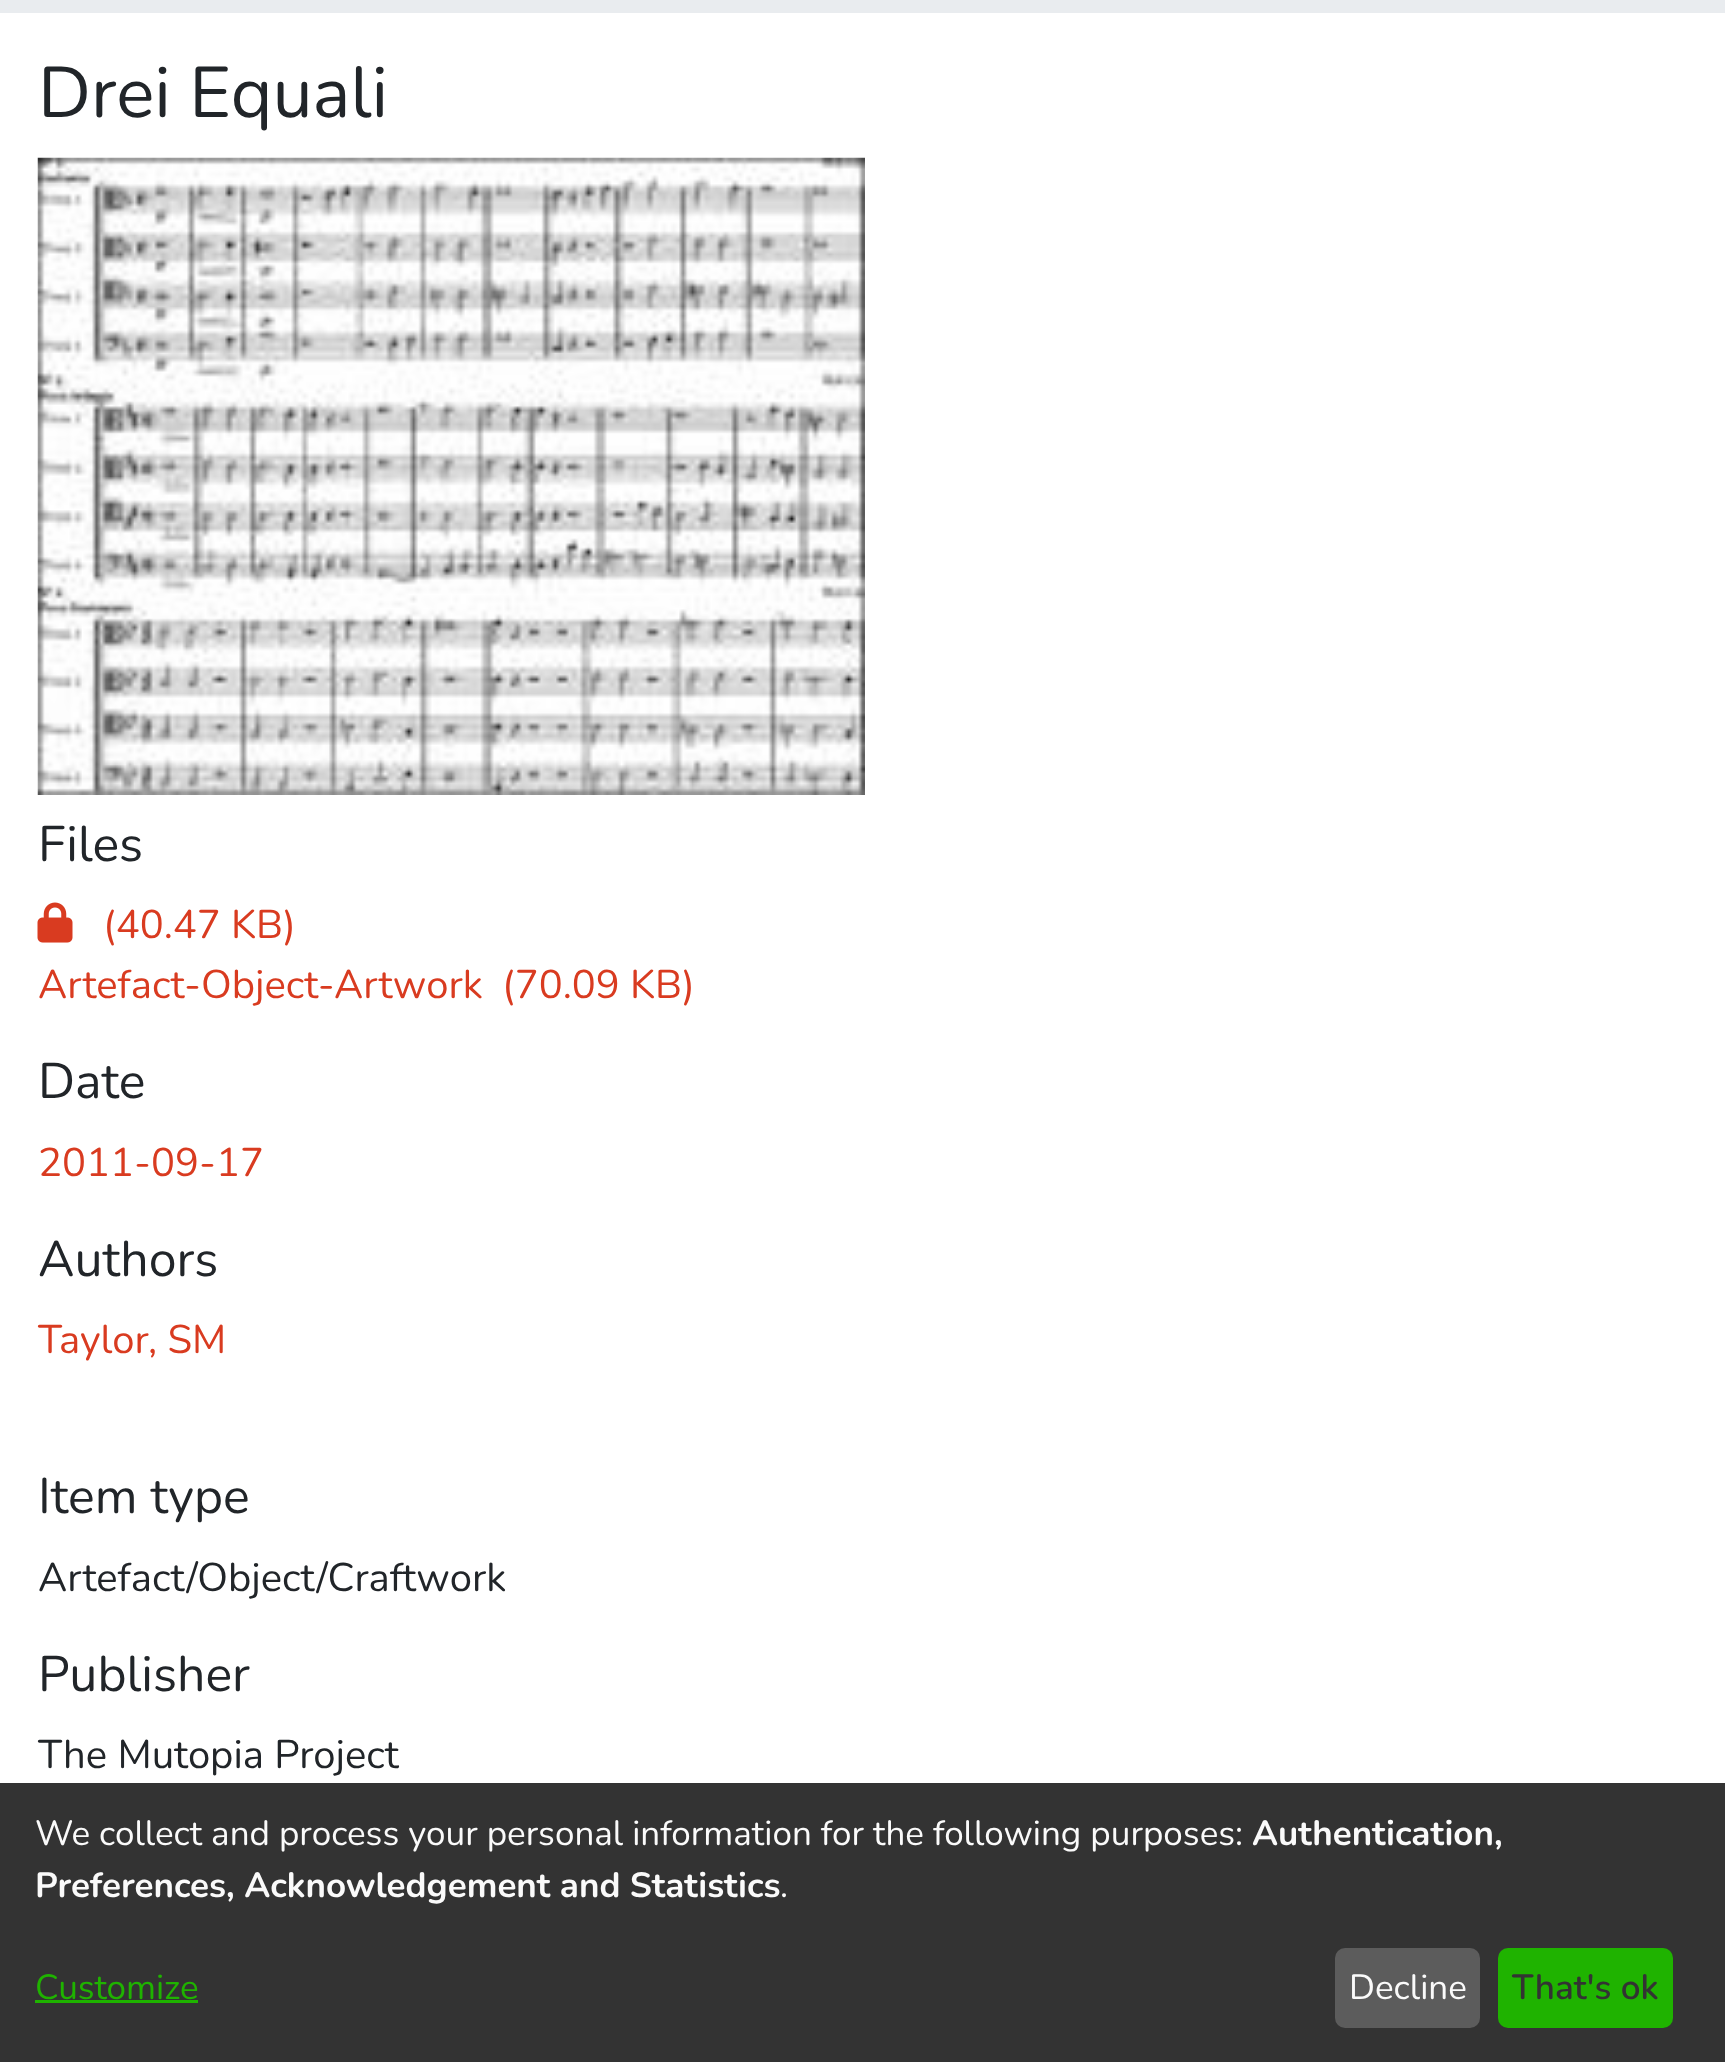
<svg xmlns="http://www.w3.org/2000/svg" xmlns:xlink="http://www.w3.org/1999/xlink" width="1725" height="2062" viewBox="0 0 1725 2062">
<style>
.cls-1{font:71.5px Nunito;fill:#212529}
.cls-2{font:50px Nunito;fill:#212529}
.cls-3{font:40px Nunito;fill:#d93b20}
.cls-4{font:40px Nunito;fill:#212529}
.cls-5{font:35px Nunito;fill:#fafafa}
.cls-6{font:bold 35px Nunito;fill:#fafafa}
.cls-7{font:35px Nunito;fill:#1fb300}
.cls-8{font:600 35px Nunito;fill:#333333}
</style>
<rect width="100%" height="100%" fill="#ffffff"/>
<rect fill="#e9ecef" x="0" y="0" width="1725" height="13"/>
<image xlink:href="image0.png" x="37" y="157" width="828" height="638"/>
<image xlink:href="image1.png" x="37" y="902" width="36" height="41"/>
<rect fill="#333333" x="0" y="1783" width="1725" height="279"/>
<rect fill="#1fb300" x="35" y="2000" width="163" height="3"/>
<rect fill="#5c5c5c" x="1335" y="1948" width="145" height="80" rx="10"/>
<rect fill="#1fb300" x="1498" y="1948" width="175" height="80" rx="10"/>
<text class="cls-1" x="38" y="117">Drei Equali</text>
<text class="cls-2" x="38" y="861">Files</text>
<text class="cls-3" x="103" y="938">(40.47 KB)</text>
<text class="cls-3" x="38" y="998">Artefact-Object-Artwork</text>
<text class="cls-3" x="502" y="998">(70.09 KB)</text>
<text class="cls-2" x="38" y="1098">Date</text>
<text class="cls-3" x="38" y="1176">2011-09-17</text>
<text class="cls-2" x="38" y="1276">Authors</text>
<text class="cls-3" x="38" y="1353">Taylor, SM</text>
<text class="cls-2" x="38" y="1513">Item type</text>
<text class="cls-4" x="38" y="1591">Artefact/Object/Craftwork</text>
<text class="cls-2" x="38" y="1691">Publisher</text>
<text class="cls-4" x="38" y="1768">The Mutopia Project</text>
<text class="cls-5" x="35" y="1845">We collect and process your personal information for the following purposes:</text>
<text class="cls-6" x="1252" y="1845">Authentication,</text>
<text class="cls-6" x="35" y="1897">Preferences, Acknowledgement and Statistics</text>
<text class="cls-5" x="780" y="1897">.</text>
<text class="cls-7" x="35" y="1999">Customize</text>
<text class="cls-5" x="1349" y="1999">Decline</text>
<text class="cls-8" x="1512" y="1999">That's ok</text>
</svg>
